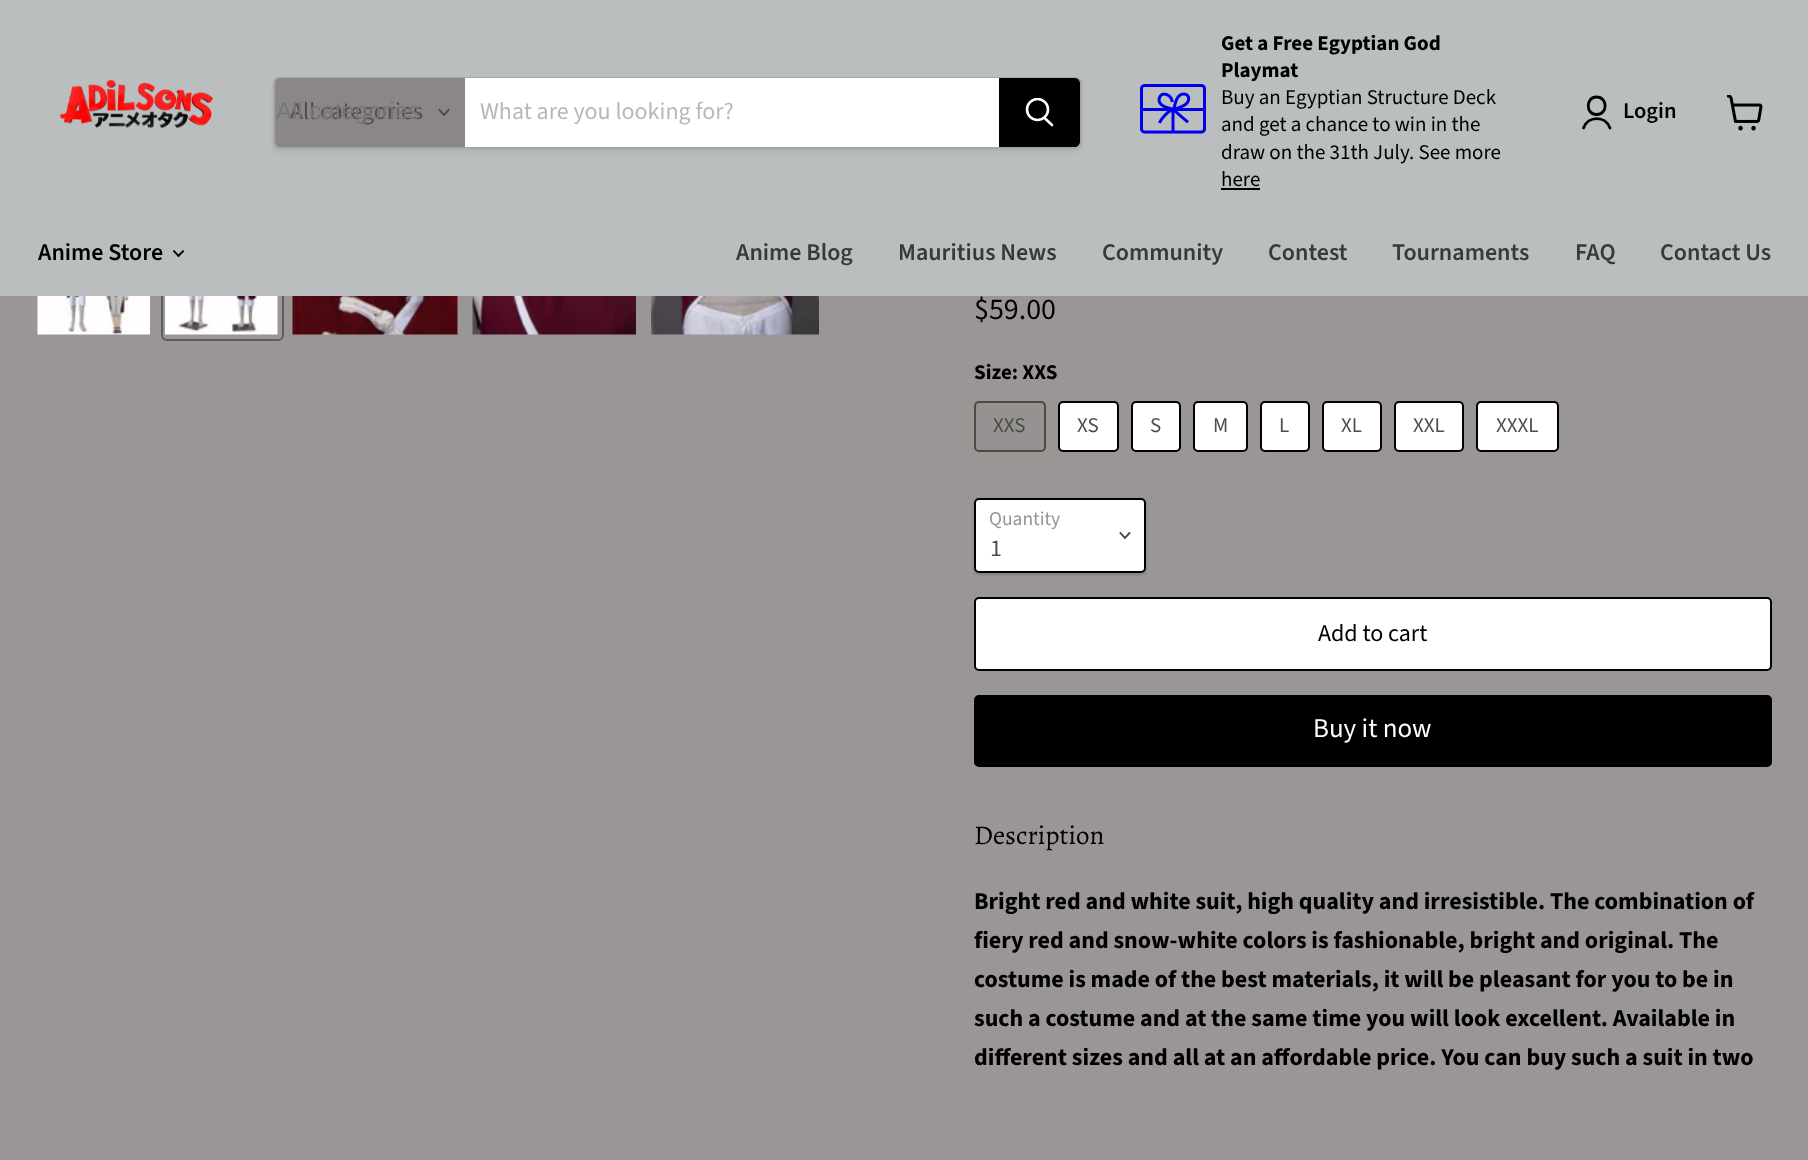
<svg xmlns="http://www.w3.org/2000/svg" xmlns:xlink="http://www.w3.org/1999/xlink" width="1808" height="1160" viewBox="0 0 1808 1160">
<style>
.cls-1{font:24px Source Sans Pro;fill:#4d4d4d}
.cls-2{font:24px Liberation Sans;fill:#787575}
.cls-3{font:24px Source Sans Pro;fill:#b8b8b8}
.cls-4{font:bold 21px Source Sans Pro;fill:#000000}
.cls-5{font:21px Source Sans Pro;fill:#000000}
.cls-6{font:600 22.5px Source Sans Pro;fill:#000000}
.cls-7{font:600 24px Source Sans Pro;fill:#000000}
.cls-8{font:600 24px Source Sans Pro;fill:#383939}
.cls-9{font:30px Source Sans Pro;fill:#000000}
.cls-10{font:21px Source Sans Pro;fill:#494d41}
.cls-11{font:21px Source Sans Pro;fill:#4d4d4d}
.cls-12{font:19.5px Source Sans Pro;fill:#949494}
.cls-13{font:24px Source Sans Pro;fill:#000000}
.cls-14{font:27px Source Sans Pro;fill:#ffffff}
.cls-15{font:27px Alegreya;fill:#000000}
.cls-16{font:bold 24px Source Sans Pro;fill:#000000}
</style>
<defs>
<clipPath id="clip1"><path d="M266 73H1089V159H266ZM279 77H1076C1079.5 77 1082 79.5 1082 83V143C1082 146.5 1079.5 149 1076 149H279C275.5 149 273 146.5 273 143V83C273 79.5 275.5 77 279 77Z" clip-rule="evenodd"/></clipPath>
<clipPath id="clip2"><rect x="1025" y="98" width="30" height="31"/></clipPath>
</defs>
<rect width="100%" height="100%" fill="#9b9696"/>
<rect fill="none" stroke="#5c5c5c" stroke-width="2" x="162" y="219" width="121" height="121" rx="5"/>
<rect fill="#babebf" x="0" y="0" width="1808" height="296"/>
<image xlink:href="image0.png" x="60" y="79" width="153" height="49"/>
<g clip-path="url(#clip1)">
<rect fill="#4e4b4b" fill-opacity="0.11" filter="blur(2px)" x="273" y="80" width="809" height="72" rx="6"/>
</g>
<rect fill="none" stroke="#4e4b4b" stroke-opacity="0.2" stroke-width="2" x="274" y="78" width="807" height="70" rx="5"/>
<path fill="#8c8787" d="M280 78H465V147H280C277 147 275 145 275 142V83C275 80 277 78 280 78Z"/>
<path fill="none" stroke="#4d4d4d" stroke-width="1.9" stroke-linecap="square" d="M444 115L448.5 110M444 115L439.5 110"/>
<rect fill="#ffffff" x="465" y="78" width="534" height="69"/>
<path fill="#000000" stroke="#000000" stroke-width="2" d="M1000 79H1075C1077 79 1079 81 1079 83V142C1079 144 1077 146 1075 146H1000Z"/>
<path fill="none" stroke="#ffffff" stroke-width="2.6" stroke-linecap="round" d="M1052 125L1044.5 118"/>
<g clip-path="url(#clip2)">
<circle fill="none" stroke="#ffffff" stroke-width="2.6" cx="1037.5" cy="109.5" r="10.5"/>
</g>
<image xlink:href="image1.png" x="1140" y="84" width="66" height="50"/>
<rect fill="#000000" x="1221" y="188" width="39" height="2"/>
<path fill="none" stroke="#000000" stroke-width="2.8" stroke-linecap="round" stroke-linejoin="round" d="M1596.5 114.5C1608 114.5 1608 97 1596.5 97C1585.5 97 1585.5 114.5 1596.5 114.5ZM1610 128C1605.5 115.5 1588 115.5 1583.5 128"/>
<image xlink:href="image2.png" x="1727" y="95" width="36" height="36"/>
<image xlink:href="image3.png" x="173" y="250" width="12" height="7"/>
<image xlink:href="image4.png" x="37" y="296" width="113" height="39"/>
<image xlink:href="image5.png" x="165" y="296" width="113" height="39"/>
<image xlink:href="image6.png" x="292" y="296" width="166" height="39"/>
<image xlink:href="image7.png" x="472" y="296" width="164" height="39"/>
<image xlink:href="image8.png" x="651" y="296" width="168" height="39"/>
<rect fill="#969291" stroke="#494d41" stroke-width="2" x="975" y="402" width="70" height="49" rx="4"/>
<rect fill="#ffffff" stroke="#000000" stroke-width="2" x="1059" y="402" width="59" height="49" rx="4"/>
<rect fill="#ffffff" stroke="#000000" stroke-width="2" x="1132" y="402" width="48" height="49" rx="4"/>
<rect fill="#ffffff" stroke="#000000" stroke-width="2" x="1194" y="402" width="53" height="49" rx="4"/>
<rect fill="#ffffff" stroke="#000000" stroke-width="2" x="1261" y="402" width="48" height="49" rx="4"/>
<rect fill="#ffffff" stroke="#000000" stroke-width="2" x="1323" y="402" width="58" height="49" rx="4"/>
<rect fill="#ffffff" stroke="#000000" stroke-width="2" x="1395" y="402" width="68" height="49" rx="4"/>
<rect fill="#ffffff" stroke="#000000" stroke-width="2" x="1477" y="402" width="81" height="49" rx="4"/>
<rect fill="#000000" fill-opacity="0.15" filter="blur(1.5px)" x="974" y="500" width="172" height="75" rx="5"/>
<rect fill="#ffffff" stroke="#000000" stroke-width="2" x="975" y="499" width="170" height="73" rx="4"/>
<path fill="none" stroke="#4d4d4d" stroke-width="1.9" stroke-linecap="square" d="M1125 538L1129.5 533M1125 538L1120.5 533"/>
<rect fill="#ffffff" stroke="#000000" stroke-width="2" x="975" y="598" width="796" height="72" rx="4"/>
<rect fill="#000000" stroke="#000000" stroke-width="2" x="975" y="696" width="796" height="70" rx="4"/>
<text class="cls-1" x="290" y="119">All categories</text>
<text class="cls-2" x="276" y="119">All categories</text>
<text class="cls-3" x="480" y="119">What are you looking for?</text>
<text class="cls-4"><tspan x="1221" y="50">Get a Free Egyptian God</tspan><tspan x="1221" y="77">Playmat</tspan></text>
<text class="cls-5"><tspan x="1221" y="104">Buy an Egyptian Structure Deck</tspan><tspan x="1221" y="131">and get a chance to win in the</tspan><tspan x="1221" y="159">draw on the 31th July. See more</tspan><tspan x="1221" y="186">here</tspan></text>
<text class="cls-6" x="1623" y="118">Login</text>
<text class="cls-7" x="38" y="260">Anime Store</text>
<text class="cls-8" x="736" y="260">Anime Blog</text>
<text class="cls-8" x="898" y="260">Mauritius News</text>
<text class="cls-8" x="1102" y="260">Community</text>
<text class="cls-8" x="1268" y="260">Contest</text>
<text class="cls-8" x="1392" y="260">Tournaments</text>
<text class="cls-8" x="1575" y="260">FAQ</text>
<text class="cls-8" x="1660" y="260">Contact Us</text>
<text class="cls-9" x="974" y="319">$59.00</text>
<text class="cls-4" x="974" y="379">Size: XXS</text>
<text class="cls-10" x="993" y="432">XXS</text>
<text class="cls-11" x="1077" y="432">XS</text>
<text class="cls-11" x="1150" y="432">S</text>
<text class="cls-11" x="1213" y="432">M</text>
<text class="cls-11" x="1279" y="432">L</text>
<text class="cls-11" x="1341" y="432">XL</text>
<text class="cls-11" x="1413" y="432">XXL</text>
<text class="cls-11" x="1496" y="432">XXXL</text>
<text class="cls-12" x="989" y="525">Quantity</text>
<text class="cls-1" x="990" y="556">1</text>
<text class="cls-13" x="1318" y="641">Add to cart</text>
<text class="cls-14" x="1313" y="737">Buy it now</text>
<text class="cls-15" x="974" y="844">Description</text>
<text class="cls-16"><tspan x="974" y="909">Bright red and white suit, high quality and irresistible. The combination of</tspan><tspan x="974" y="948">fiery red and snow-white colors is fashionable, bright and original. The</tspan><tspan x="974" y="987">costume is made of the best materials, it will be pleasant for you to be in</tspan><tspan x="974" y="1026">such a costume and at the same time you will look excellent. Available in</tspan><tspan x="974" y="1065">different sizes and all at an affordable price. You can buy such a suit in two</tspan></text>
</svg>
